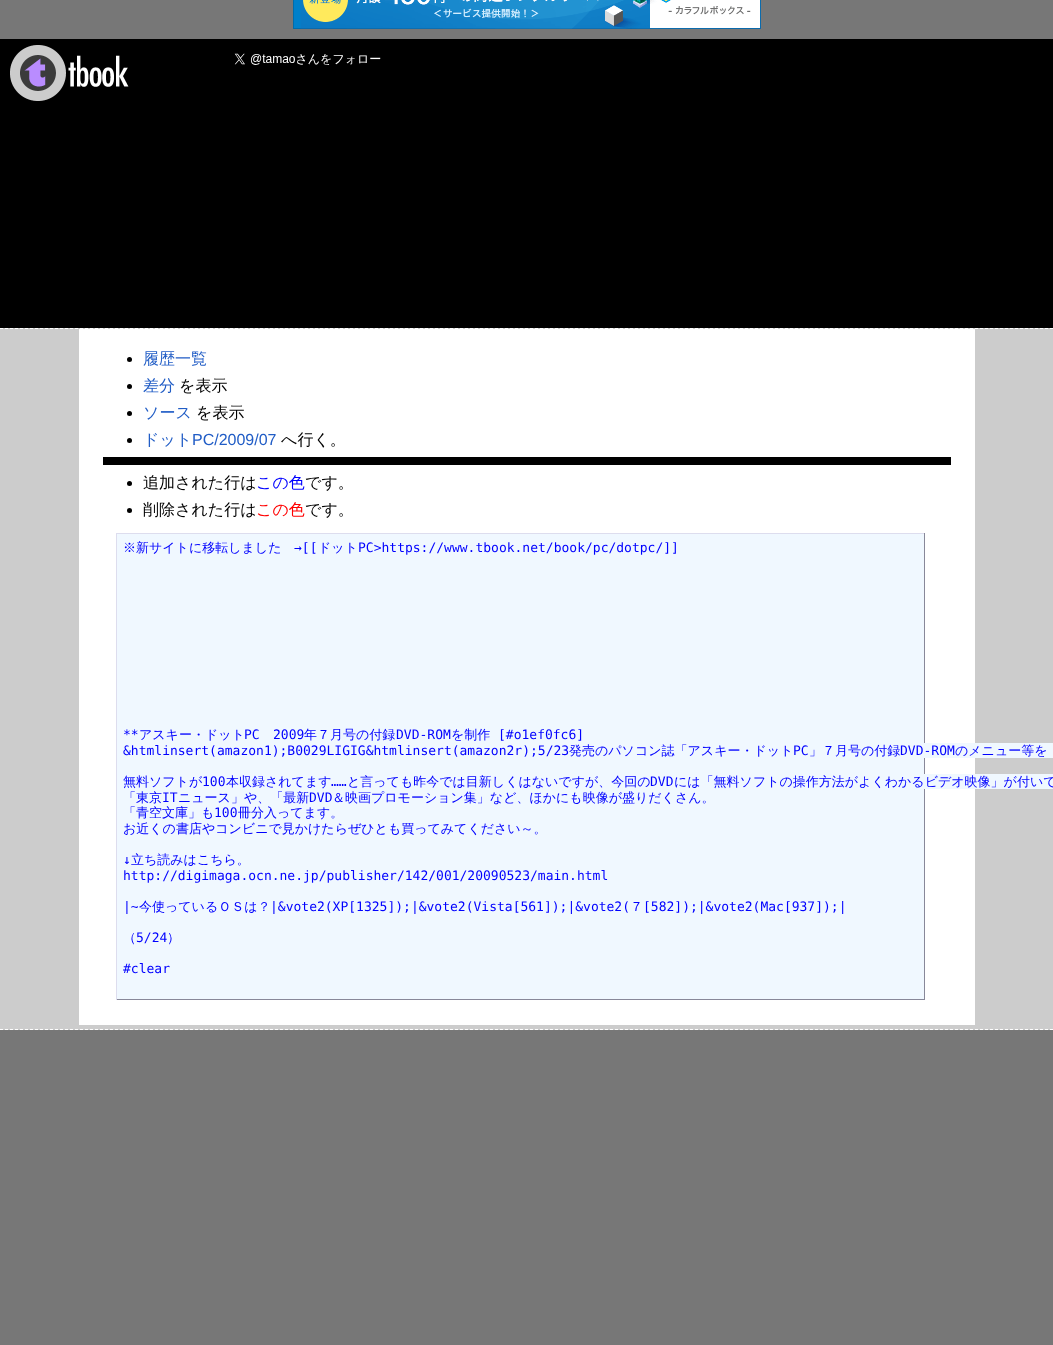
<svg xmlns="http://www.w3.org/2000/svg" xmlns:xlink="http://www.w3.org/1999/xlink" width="1053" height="1345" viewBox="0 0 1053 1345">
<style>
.cls-1{font:500 16px WenQuanYi Zen Hei;fill:#215dc6}
.cls-2{font:500 16px WenQuanYi Zen Hei;fill:#000000}
.cls-3{font:16px Liberation Sans;fill:#215dc6}
.cls-4{font:500 16px WenQuanYi Zen Hei;fill:#0000ff}
.cls-5{font:500 16px WenQuanYi Zen Hei;fill:#ff0000}
.cls-6{font:500 13px WenQuanYi Zen Hei;fill:#0000ff}
.cls-7{font:13px DejaVu Sans Mono;fill:#0000ff}
</style>
<rect width="100%" height="100%" fill="#777777"/>
<image xlink:href="image0.png" x="293" y="0" width="468" height="29"/>
<rect fill="#000000" x="0" y="39" width="1053" height="289"/>
<image xlink:href="image1.png" x="10" y="45" width="119" height="56"/>
<image xlink:href="image2.png" x="234" y="53" width="147" height="12"/>
<rect fill="#cccccc" x="0" y="328" width="1053" height="702"/>
<path fill="none" stroke="#ffffff" stroke-dasharray="3 2" d="M0 328.5H1053"/>
<path fill="none" stroke="#ffffff" stroke-dasharray="3 2" d="M0 1029.5H1053"/>
<rect fill="#ffffff" x="79" y="329" width="896" height="696"/>
<circle fill="#000000" cx="129.5" cy="359.5" r="2.5"/>
<circle fill="#000000" cx="129.5" cy="386.5" r="2.5"/>
<circle fill="#000000" cx="129.5" cy="413.5" r="2.5"/>
<circle fill="#000000" cx="129.5" cy="440.5" r="2.5"/>
<rect fill="#000000" x="103" y="457" width="848" height="8"/>
<circle fill="#000000" cx="129.5" cy="483.5" r="2.5"/>
<circle fill="#000000" cx="129.5" cy="510.5" r="2.5"/>
<rect fill="#f0f8ff" x="117" y="534" width="807" height="465"/>
<rect fill="#ddddee" x="116" y="533" width="809" height="1"/>
<rect fill="#888899" x="924" y="533" width="1" height="467"/>
<rect fill="#888899" x="116" y="999" width="809" height="1"/>
<rect fill="#ddddee" x="116" y="533" width="1" height="467"/>
<rect fill="#f0f8ff" x="924" y="743" width="129" height="15"/>
<rect fill="#f0f8ff" x="924" y="774" width="129" height="15"/>
<text class="cls-1"><tspan x="143" y="364">履歴一覧</tspan><tspan x="143" y="391">差分</tspan></text>
<text class="cls-2" x="179" y="391">を表示</text>
<text class="cls-1" x="143" y="418">ソース</text>
<text class="cls-2" x="196" y="418">を表示</text>
<text class="cls-1" x="143" y="445">ドット</text>
<text class="cls-3" x="192" y="445">PC/2009/07</text>
<text class="cls-2" x="281" y="445">へ行く。</text>
<text class="cls-2" x="143" y="488">追加された行は</text>
<text class="cls-4" x="256" y="488">この色</text>
<text class="cls-2" x="305" y="488">です。</text>
<text class="cls-2" x="143" y="515">削除された行は</text>
<text class="cls-5" x="256" y="515">この色</text>
<text class="cls-2" x="305" y="515">です。</text>
<text class="cls-6" x="123" y="552">※新サイトに移転しました</text>
<text class="cls-7" x="294" y="552">→[[</text>
<text class="cls-6" x="318" y="552">ドット</text>
<text class="cls-7" x="358" y="552">PC&gt;https://www.tbook.net/book/pc/dotpc/]]</text>
<text class="cls-7" x="123" y="739">**</text>
<text class="cls-6" x="139" y="739">アスキー・ドット</text>
<text class="cls-7" x="244" y="739">PC</text>
<text class="cls-7" x="273" y="739">2009</text>
<text class="cls-6" x="304" y="739">年７月号の付録</text>
<text class="cls-7" x="396" y="739">DVD-ROM</text>
<text class="cls-6" x="451" y="739">を制作</text>
<text class="cls-7" x="498" y="739">[#o1ef0fc6]</text>
<text class="cls-7" x="123" y="755">&amp;htmlinsert(amazon1);B0029LIGIG&amp;htmlinsert(amazon2r);5/23</text>
<text class="cls-6" x="569" y="755">発売のパソコン誌「アスキー・ドット</text>
<text class="cls-7" x="793" y="755">PC</text>
<text class="cls-6" x="809" y="755">」７月号の付録</text>
<text class="cls-7" x="900" y="755">DVD-ROM</text>
<text class="cls-6" x="955" y="755">のメニュー等を</text>
<text class="cls-6" x="123" y="786">無料ソフトが</text>
<text class="cls-7" x="202" y="786">100</text>
<text class="cls-6" x="226" y="786">本収録されてます</text>
<text class="cls-7" x="331" y="786">……</text>
<text class="cls-6" x="347" y="786">と言っても昨今では目新しくはないですが、今回の</text>
<text class="cls-7" x="650" y="786">DVD</text>
<text class="cls-6" x="674" y="786">には「無料ソフトの操作方法がよくわかるビデオ映像」が付いて</text>
<text class="cls-6" x="123" y="802">「東京</text>
<text class="cls-7" x="162" y="802">IT</text>
<text class="cls-6" x="178" y="802">ニュース」や、「最新</text>
<text class="cls-7" x="309" y="802">DVD</text>
<text class="cls-6" x="332" y="802">＆映画プロモーション集」など、ほかにも映像が盛りだくさん。</text>
<text class="cls-6" x="123" y="817">「青空文庫」も</text>
<text class="cls-7" x="214" y="817">100</text>
<text class="cls-6" x="238" y="817">冊分入ってます。</text>
<text class="cls-6" x="123" y="833">お近くの書店やコンビニで見かけたらぜひとも買ってみてください～。</text>
<text class="cls-7" x="123" y="864">↓</text>
<text class="cls-6" x="131" y="864">立ち読みはこちら。</text>
<text class="cls-7" x="123" y="880">http://digimaga.ocn.ne.jp/publisher/142/001/20090523/main.html</text>
<text class="cls-7" x="123" y="911">|~</text>
<text class="cls-6" x="139" y="911">今使っているＯＳは？</text>
<text class="cls-7" x="270" y="911">|&amp;vote2(XP[1325]);|&amp;vote2(Vista[561]);|&amp;vote2(</text>
<text class="cls-6" x="630" y="911">７</text>
<text class="cls-7" x="643" y="911">[582]);|&amp;vote2(Mac[937]);|</text>
<text class="cls-6" x="123" y="942">（</text>
<text class="cls-7" x="136" y="942">5/24</text>
<text class="cls-6" x="167" y="942">）</text>
<text class="cls-7" x="123" y="973">#clear</text>
</svg>
